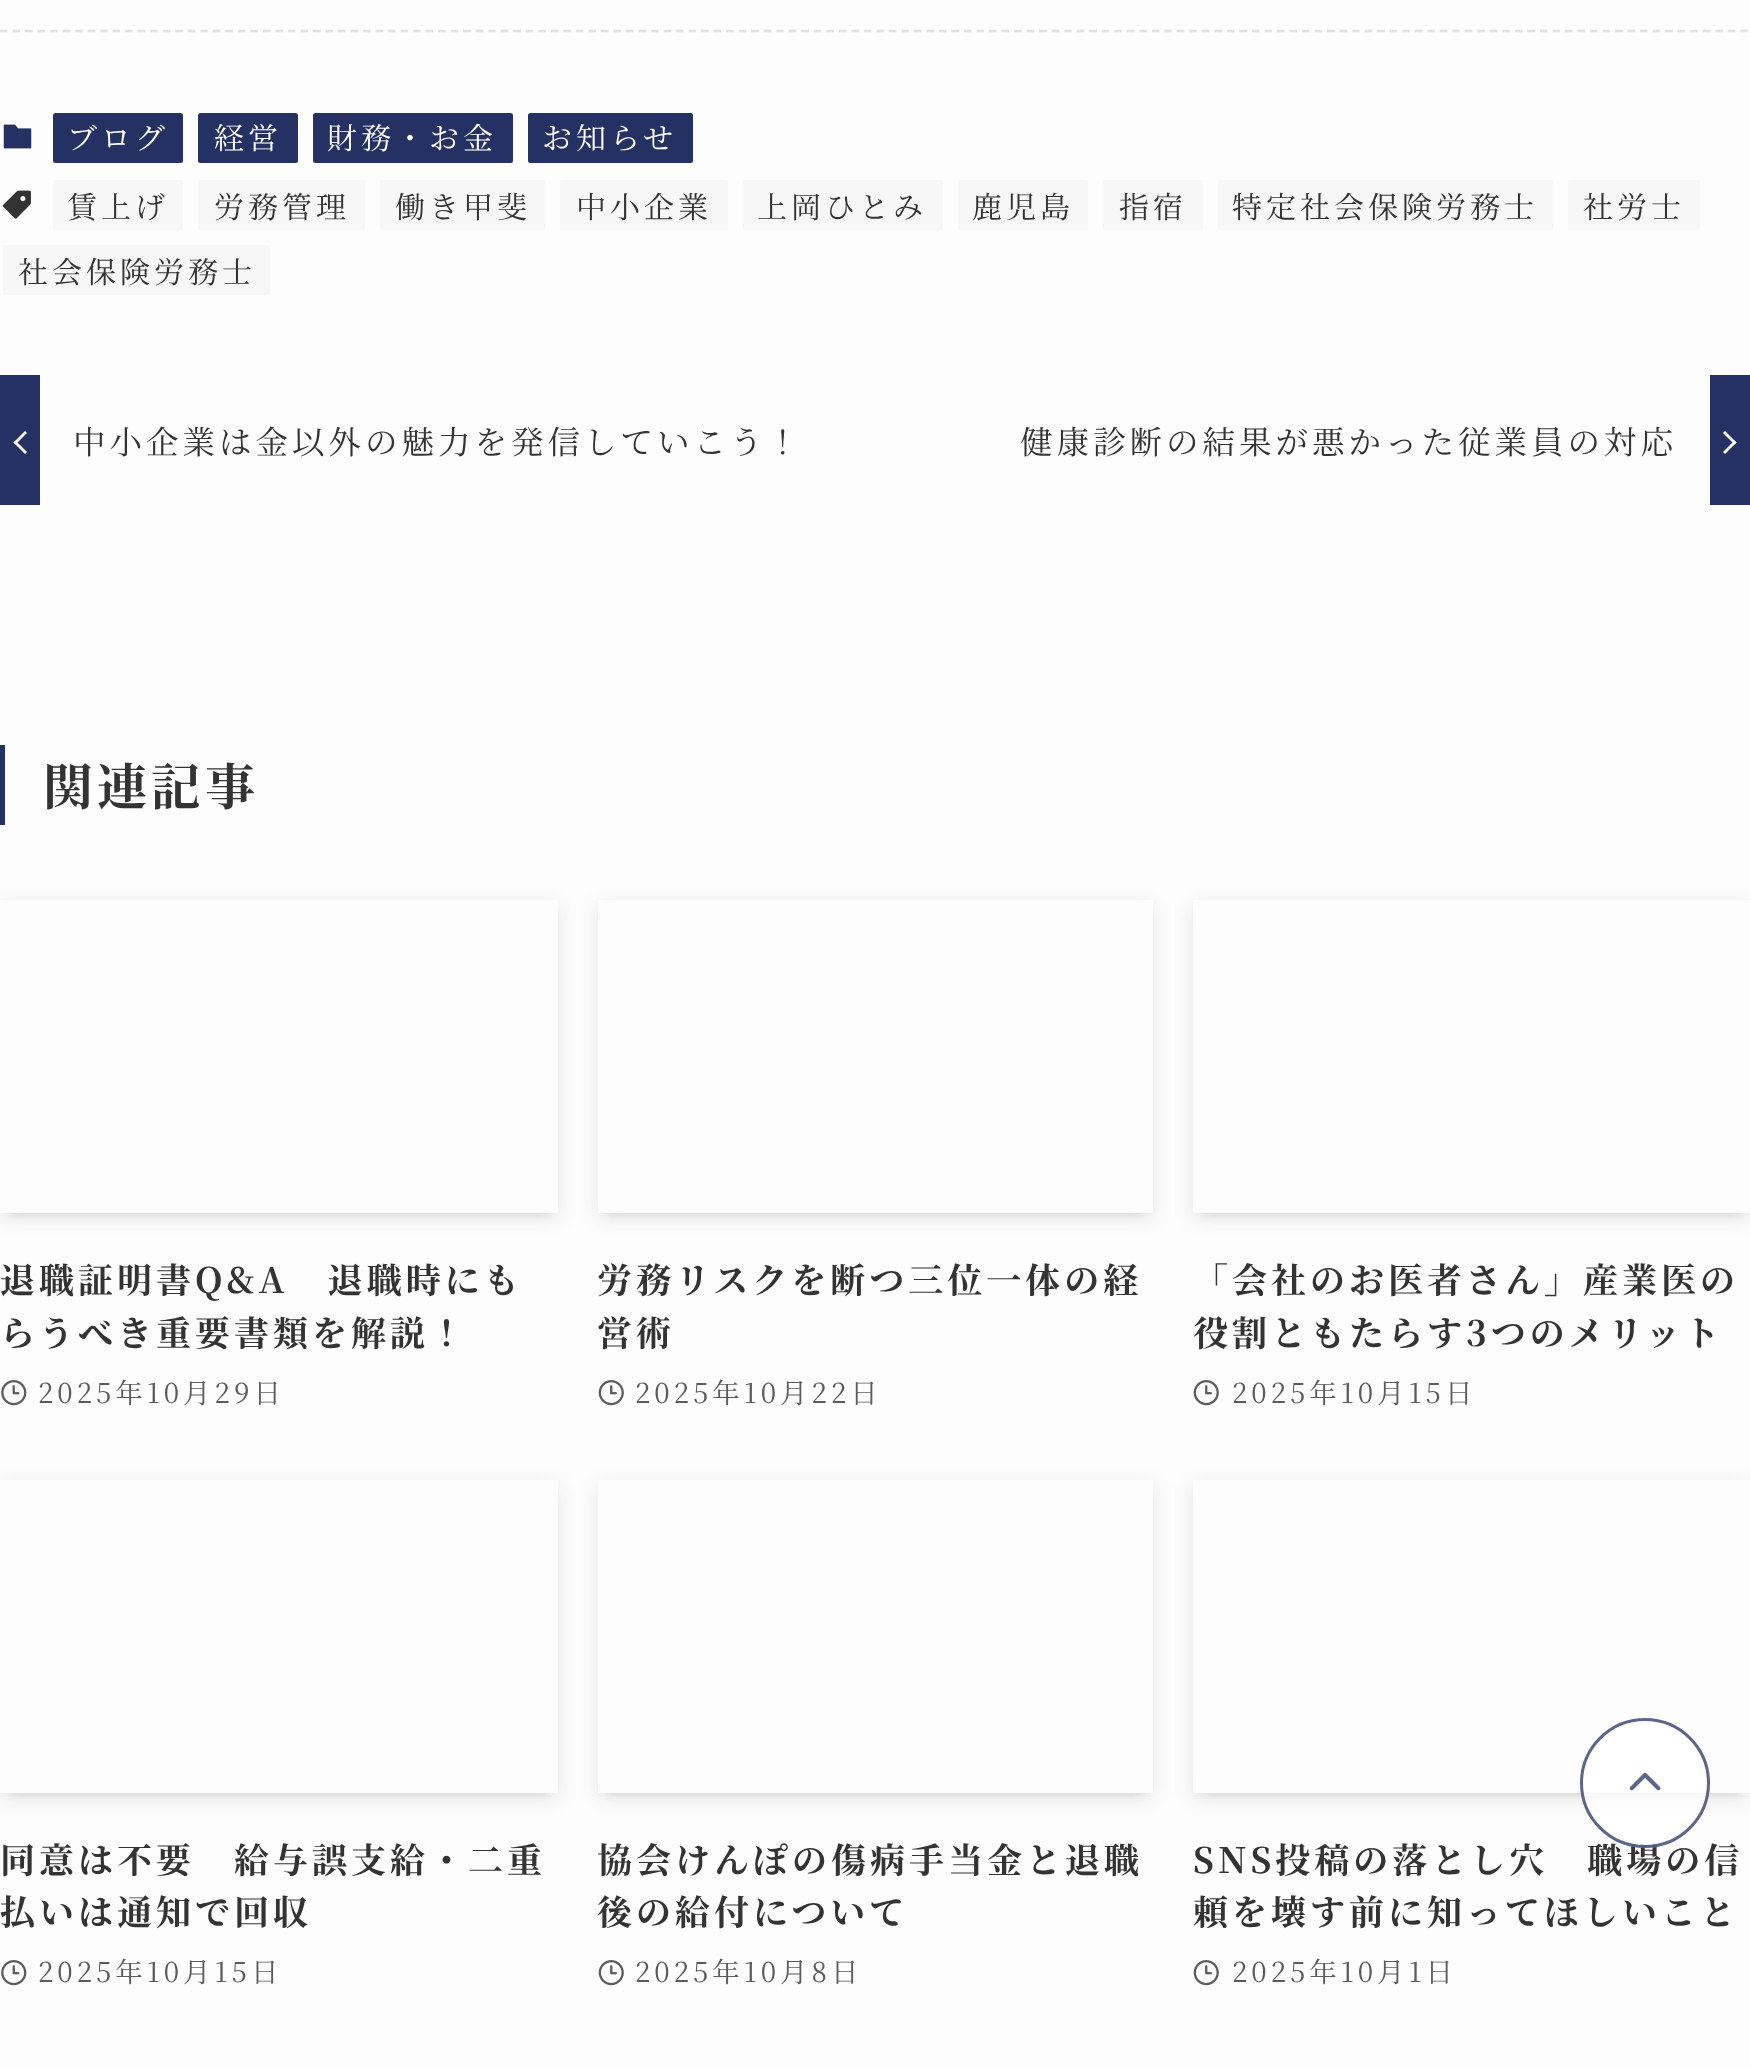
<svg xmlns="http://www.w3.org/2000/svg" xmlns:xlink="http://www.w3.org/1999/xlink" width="1750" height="2067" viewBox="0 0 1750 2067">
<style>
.cls-1{font:30px Noto Serif JP;letter-spacing:4px;fill:#ffffff}
.cls-2{font:30px Noto Serif JP;letter-spacing:4px;fill:#333333}
.cls-3{font:32.5px Noto Serif JP;letter-spacing:4px;fill:#333333}
.cls-4{font:bold 50px Noto Serif JP;letter-spacing:4px;fill:#333333}
.cls-5{font:bold 35px Noto Serif JP;letter-spacing:4px;fill:#333333}
.cls-6{font:27.5px Noto Serif JP;letter-spacing:4px;fill:#5b5b5b}
</style>
<defs>
<clipPath id="clip1"><path d="M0 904H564V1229H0ZM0 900H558V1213H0Z" clip-rule="evenodd"/></clipPath>
<clipPath id="clip2"><path d="M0 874H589V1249H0ZM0 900H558V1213H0Z" clip-rule="evenodd"/></clipPath>
<clipPath id="clip3"><path d="M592 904H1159V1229H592ZM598 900H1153V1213H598Z" clip-rule="evenodd"/></clipPath>
<clipPath id="clip4"><path d="M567 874H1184V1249H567ZM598 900H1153V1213H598Z" clip-rule="evenodd"/></clipPath>
<clipPath id="clip5"><path d="M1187 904H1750V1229H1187ZM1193 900H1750V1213H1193Z" clip-rule="evenodd"/></clipPath>
<clipPath id="clip6"><path d="M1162 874H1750V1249H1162ZM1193 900H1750V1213H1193Z" clip-rule="evenodd"/></clipPath>
<clipPath id="clip7"><path d="M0 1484H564V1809H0ZM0 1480H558V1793H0Z" clip-rule="evenodd"/></clipPath>
<clipPath id="clip8"><path d="M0 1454H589V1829H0ZM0 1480H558V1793H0Z" clip-rule="evenodd"/></clipPath>
<clipPath id="clip9"><path d="M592 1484H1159V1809H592ZM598 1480H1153V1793H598Z" clip-rule="evenodd"/></clipPath>
<clipPath id="clip10"><path d="M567 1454H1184V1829H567ZM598 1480H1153V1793H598Z" clip-rule="evenodd"/></clipPath>
<clipPath id="clip11"><path d="M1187 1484H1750V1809H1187ZM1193 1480H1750V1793H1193Z" clip-rule="evenodd"/></clipPath>
<clipPath id="clip12"><path d="M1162 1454H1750V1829H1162ZM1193 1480H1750V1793H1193Z" clip-rule="evenodd"/></clipPath>
</defs>
<rect width="100%" height="100%" fill="#fdfdfd"/>
<path fill="none" stroke="#e2e2e2" stroke-width="2.5" stroke-dasharray="7.5 5.02" d="M0 31H1750"/>
<image xlink:href="image0.png" x="3" y="124" width="29" height="25"/>
<rect fill="#263163" x="53" y="113" width="130" height="50" rx="2.5"/>
<rect fill="#263163" x="198" y="113" width="100" height="50" rx="2.5"/>
<rect fill="#263163" x="313" y="113" width="200" height="50" rx="2.5"/>
<rect fill="#263163" x="528" y="113" width="165" height="50" rx="2.5"/>
<image xlink:href="image1.png" x="2" y="190" width="29" height="29"/>
<rect fill="#f7f7f7" x="53" y="180" width="130" height="50" rx="2.5"/>
<rect fill="#f7f7f7" x="198" y="180" width="167" height="50" rx="2.5"/>
<rect fill="#f7f7f7" x="380" y="180" width="165" height="50" rx="2.5"/>
<rect fill="#f7f7f7" x="560" y="180" width="168" height="50" rx="2.5"/>
<rect fill="#f7f7f7" x="743" y="180" width="200" height="50" rx="2.5"/>
<rect fill="#f7f7f7" x="958" y="180" width="130" height="50" rx="2.5"/>
<rect fill="#f7f7f7" x="1103" y="180" width="100" height="50" rx="2.5"/>
<rect fill="#f7f7f7" x="1218" y="180" width="335" height="50" rx="2.5"/>
<rect fill="#f7f7f7" x="1568" y="180" width="132" height="50" rx="2.5"/>
<rect fill="#f7f7f7" x="3" y="245" width="267" height="50" rx="2.5"/>
<rect fill="#263163" x="0" y="375" width="40" height="130"/>
<path fill="#ffffff" d="M15.5 440.5L27 452L25 454L13.5 442.5Z"/>
<path fill="#ffffff" d="M25 431L27 433L15.5 444.5L13.5 442.5Z"/>
<rect fill="#263163" x="1710" y="375" width="40" height="130"/>
<path fill="#ffffff" d="M1723 433L1725 431L1736.5 442.5L1734.5 444.5Z"/>
<path fill="#ffffff" d="M1723 452L1734.5 440.5L1736.5 442.5L1725 454Z"/>
<rect fill="#263163" x="0" y="745" width="5" height="80"/>
<g clip-path="url(#clip1)">
<rect fill="#000000" fill-opacity="0.1" filter="blur(5px)" x="10" y="920" width="538" height="293"/>
</g>
<g clip-path="url(#clip2)">
<rect fill="#000000" fill-opacity="0.1" filter="blur(10px)" x="0" y="905" width="558" height="313"/>
</g>
<image xlink:href="image2.png" x="1" y="1380" width="26" height="26"/>
<g clip-path="url(#clip3)">
<rect fill="#000000" fill-opacity="0.1" filter="blur(5px)" x="608" y="920" width="535" height="293"/>
</g>
<g clip-path="url(#clip4)">
<rect fill="#000000" fill-opacity="0.1" filter="blur(10px)" x="598" y="905" width="555" height="313"/>
</g>
<image xlink:href="image3.png" x="598" y="1380" width="26" height="26"/>
<g clip-path="url(#clip5)">
<rect fill="#000000" fill-opacity="0.1" filter="blur(5px)" x="1203" y="920" width="537" height="293"/>
</g>
<g clip-path="url(#clip6)">
<rect fill="#000000" fill-opacity="0.1" filter="blur(10px)" x="1193" y="905" width="557" height="313"/>
</g>
<image xlink:href="image3.png" x="1193" y="1380" width="26" height="26"/>
<g clip-path="url(#clip7)">
<rect fill="#000000" fill-opacity="0.1" filter="blur(5px)" x="10" y="1500" width="538" height="293"/>
</g>
<g clip-path="url(#clip8)">
<rect fill="#000000" fill-opacity="0.1" filter="blur(10px)" x="0" y="1485" width="558" height="313"/>
</g>
<image xlink:href="image2.png" x="1" y="1960" width="26" height="26"/>
<g clip-path="url(#clip9)">
<rect fill="#000000" fill-opacity="0.1" filter="blur(5px)" x="608" y="1500" width="535" height="293"/>
</g>
<g clip-path="url(#clip10)">
<rect fill="#000000" fill-opacity="0.1" filter="blur(10px)" x="598" y="1485" width="555" height="313"/>
</g>
<image xlink:href="image3.png" x="598" y="1960" width="26" height="26"/>
<g clip-path="url(#clip11)">
<rect fill="#000000" fill-opacity="0.1" filter="blur(5px)" x="1203" y="1500" width="537" height="293"/>
</g>
<g clip-path="url(#clip12)">
<rect fill="#000000" fill-opacity="0.1" filter="blur(10px)" x="1193" y="1485" width="557" height="313"/>
</g>
<image xlink:href="image3.png" x="1193" y="1960" width="26" height="26"/>
<text class="cls-1" x="67" y="149">ブログ</text>
<text class="cls-1" x="214" y="149">経営</text>
<text class="cls-1" x="327" y="149">財務・お金</text>
<text class="cls-1" x="542" y="149">お知らせ</text>
<text class="cls-2" x="67" y="218">賃上げ</text>
<text class="cls-2" x="214" y="218">労務管理</text>
<text class="cls-2" x="395" y="218">働き甲斐</text>
<text class="cls-2" x="576" y="218">中小企業</text>
<text class="cls-2" x="757" y="218">上岡ひとみ</text>
<text class="cls-2" x="972" y="218">鹿児島</text>
<text class="cls-2" x="1119" y="218">指宿</text>
<text class="cls-2" x="1232" y="218">特定社会保険労務士</text>
<text class="cls-2" x="1583" y="218">社労士</text>
<text class="cls-2" x="18" y="283">社会保険労務士</text>
<text class="cls-3" x="73" y="454">中小企業は金以外の魅力を発信していこう！</text>
<text class="cls-3" x="1020" y="454">健康診断の結果が悪かった従業員の対応</text>
<text class="cls-4" x="43" y="805">関連記事</text>
<text class="cls-5"><tspan x="0" y="1293">退職証明書Q&amp;A　退職時にも</tspan><tspan x="0" y="1346">らうべき重要書類を解説！</tspan></text>
<text class="cls-6" x="38" y="1403">2025年10月29日</text>
<text class="cls-5"><tspan x="597" y="1293">労務リスクを断つ三位一体の経</tspan><tspan x="597" y="1346">営術</tspan></text>
<text class="cls-6" x="635" y="1403">2025年10月22日</text>
<text class="cls-5"><tspan x="1193" y="1293">「会社のお医者さん」産業医の</tspan><tspan x="1193" y="1346">役割ともたらす3つのメリット</tspan></text>
<text class="cls-6" x="1232" y="1403">2025年10月15日</text>
<text class="cls-5"><tspan x="0" y="1873">同意は不要　給与誤支給・二重</tspan><tspan x="0" y="1925">払いは通知で回収</tspan></text>
<text class="cls-6" x="38" y="1982">2025年10月15日</text>
<text class="cls-5"><tspan x="597" y="1873">協会けんぽの傷病手当金と退職</tspan><tspan x="597" y="1925">後の給付について</tspan></text>
<text class="cls-6" x="635" y="1982">2025年10月8日</text>
<text class="cls-5"><tspan x="1193" y="1873">SNS投稿の落とし穴　職場の信</tspan><tspan x="1193" y="1925">頼を壊す前に知ってほしいこと</tspan></text>
<text class="cls-6" x="1232" y="1982">2025年10月1日</text>
<circle fill="#ffffff" fill-opacity="0.75" cx="1645" cy="1783" r="65"/>
<circle fill="none" stroke="#263163" stroke-opacity="0.75" stroke-width="3" cx="1645" cy="1783" r="63.5"/>
<image xlink:href="image4.png" x="1629" y="1772" width="32" height="19"/>
</svg>
